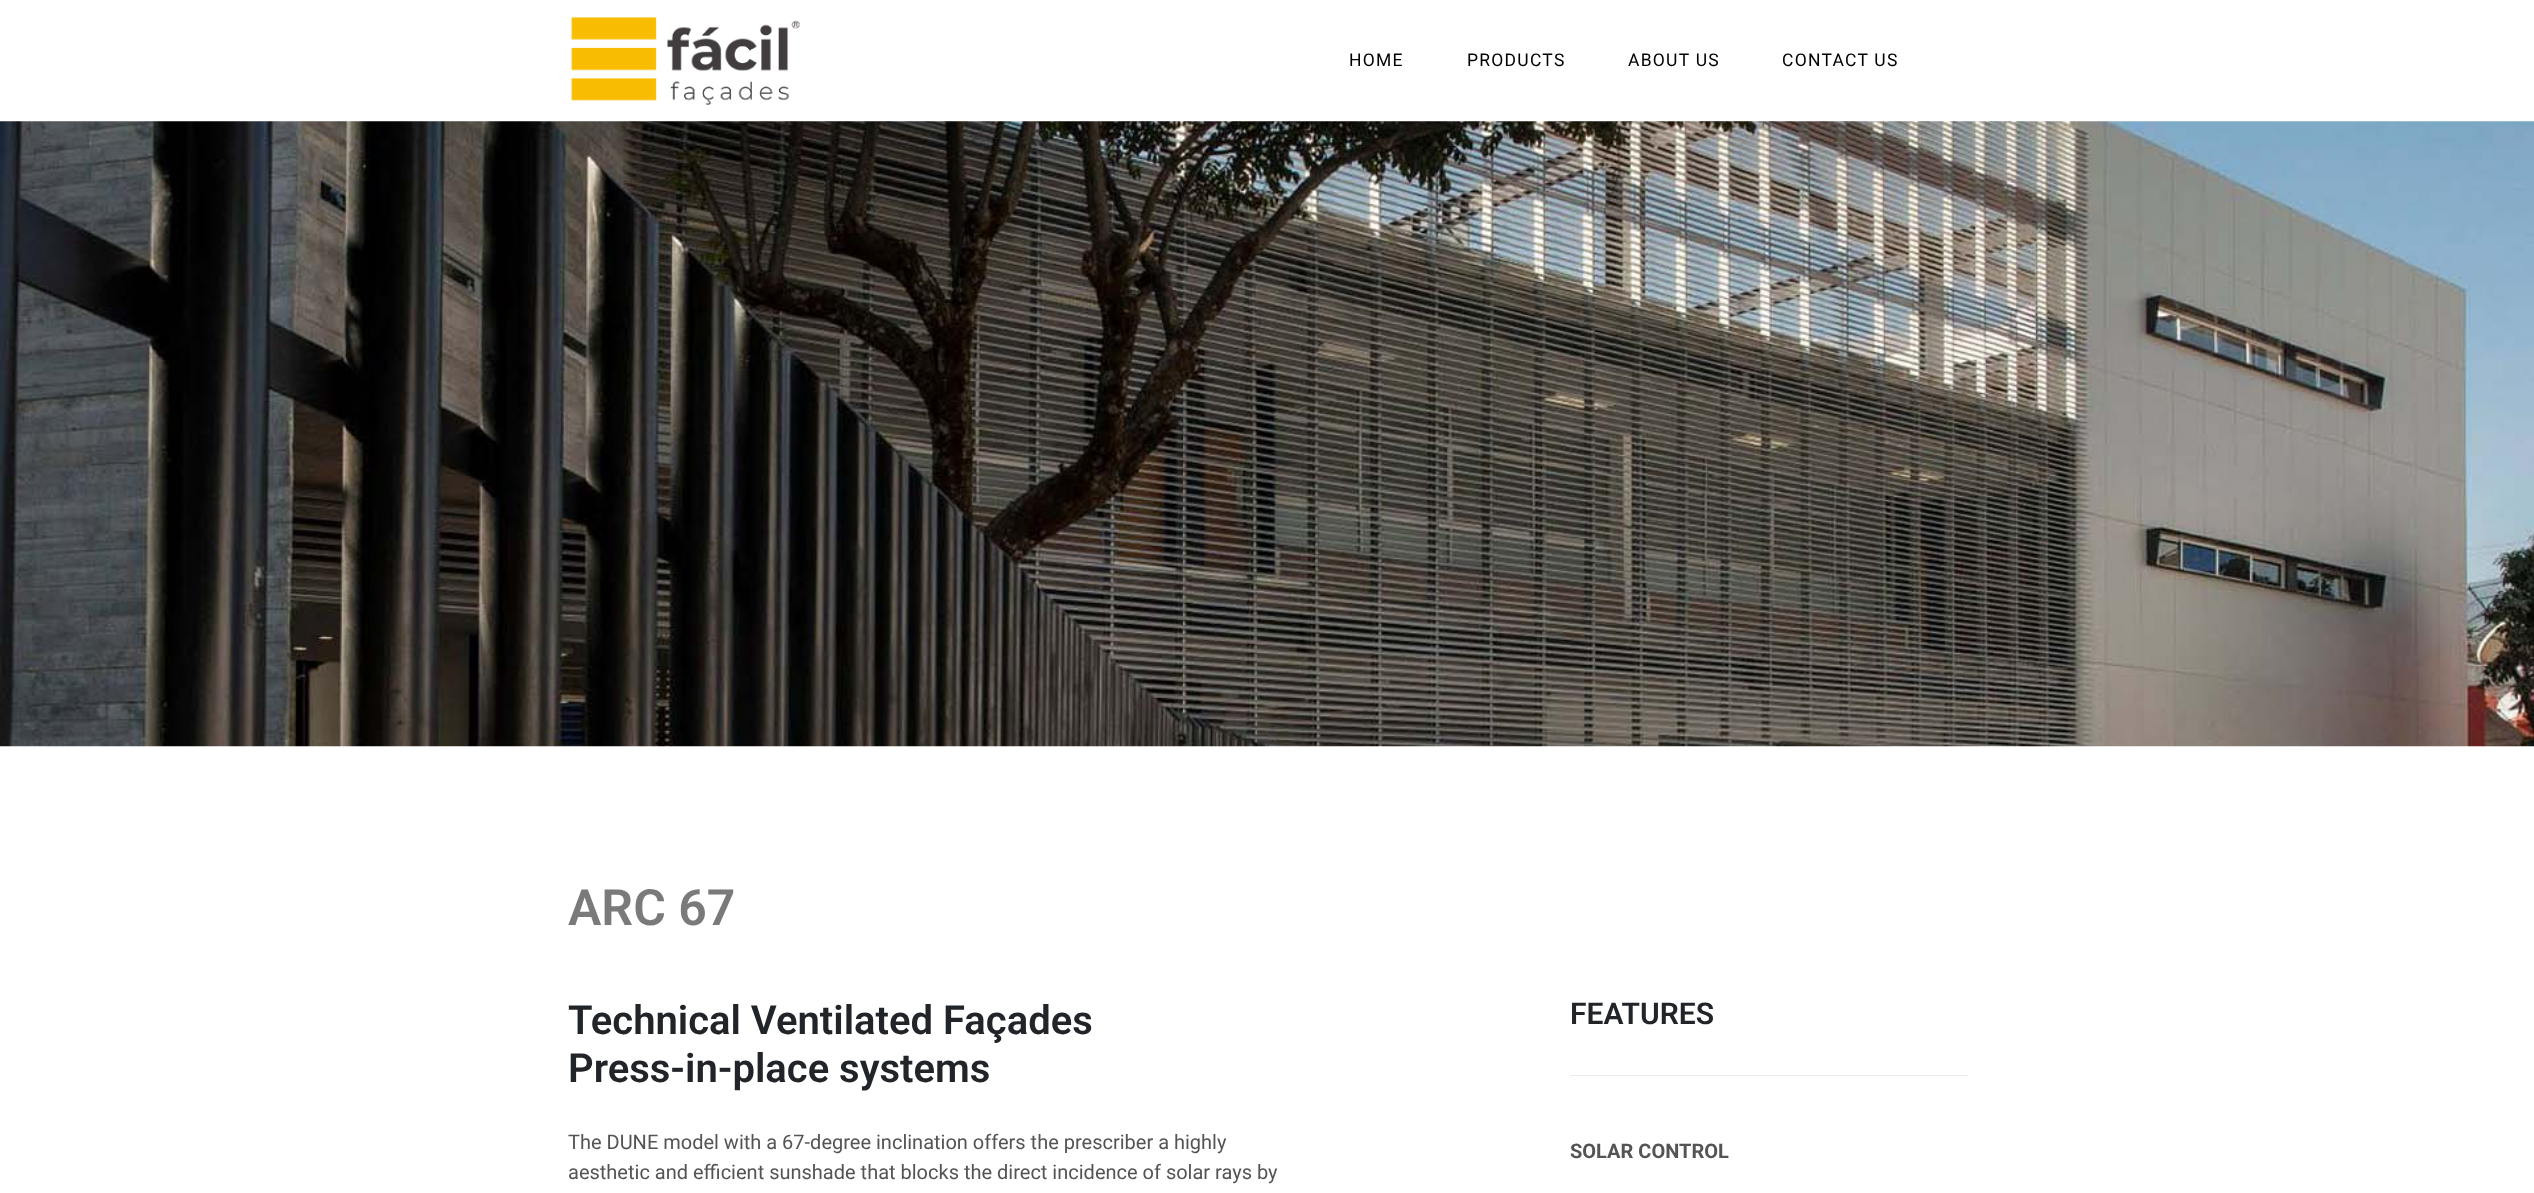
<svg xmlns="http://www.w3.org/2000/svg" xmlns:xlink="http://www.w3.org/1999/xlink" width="2534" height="1193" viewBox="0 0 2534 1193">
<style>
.cls-1{font:17.5px Roboto;letter-spacing:1.25px;fill:#000000}
.cls-2{font:600 50px Roboto;fill:#7a7a7a}
.cls-3{font:600 40px Roboto;fill:#212529}
.cls-4{font:20px Roboto;fill:#545454}
.cls-5{font:600 30px Roboto;fill:#212529}
.cls-6{font:bold 20px Roboto;fill:#545454}
</style>
<rect width="100%" height="100%" fill="#ffffff"/>
<image xlink:href="image0.png" x="571" y="17" width="229" height="88"/>
<image xlink:href="image1.png" x="0" y="121" width="2534" height="626"/>
<rect fill="#ebebeb" x="1570" y="1075" width="398" height="1"/>
<text class="cls-1" x="1349" y="66">HOME</text>
<text class="cls-1" x="1467" y="66">PRODUCTS</text>
<text class="cls-1" x="1628" y="66">ABOUT US</text>
<text class="cls-1" x="1782" y="66">CONTACT US</text>
<text class="cls-2" x="568" y="925">ARC 67</text>
<text class="cls-3"><tspan x="568" y="1034">Technical Ventilated Façades</tspan><tspan x="568" y="1082">Press-in-place systems</tspan></text>
<text class="cls-4"><tspan x="568" y="1149">The DUNE model with a 67-degree inclination offers the prescriber a highly</tspan><tspan x="568" y="1179">aesthetic and efficient sunshade that blocks the direct incidence of solar rays by</tspan></text>
<text class="cls-5" x="1570" y="1024">FEATURES</text>
<text class="cls-6" x="1570" y="1158">SOLAR CONTROL</text>
</svg>
